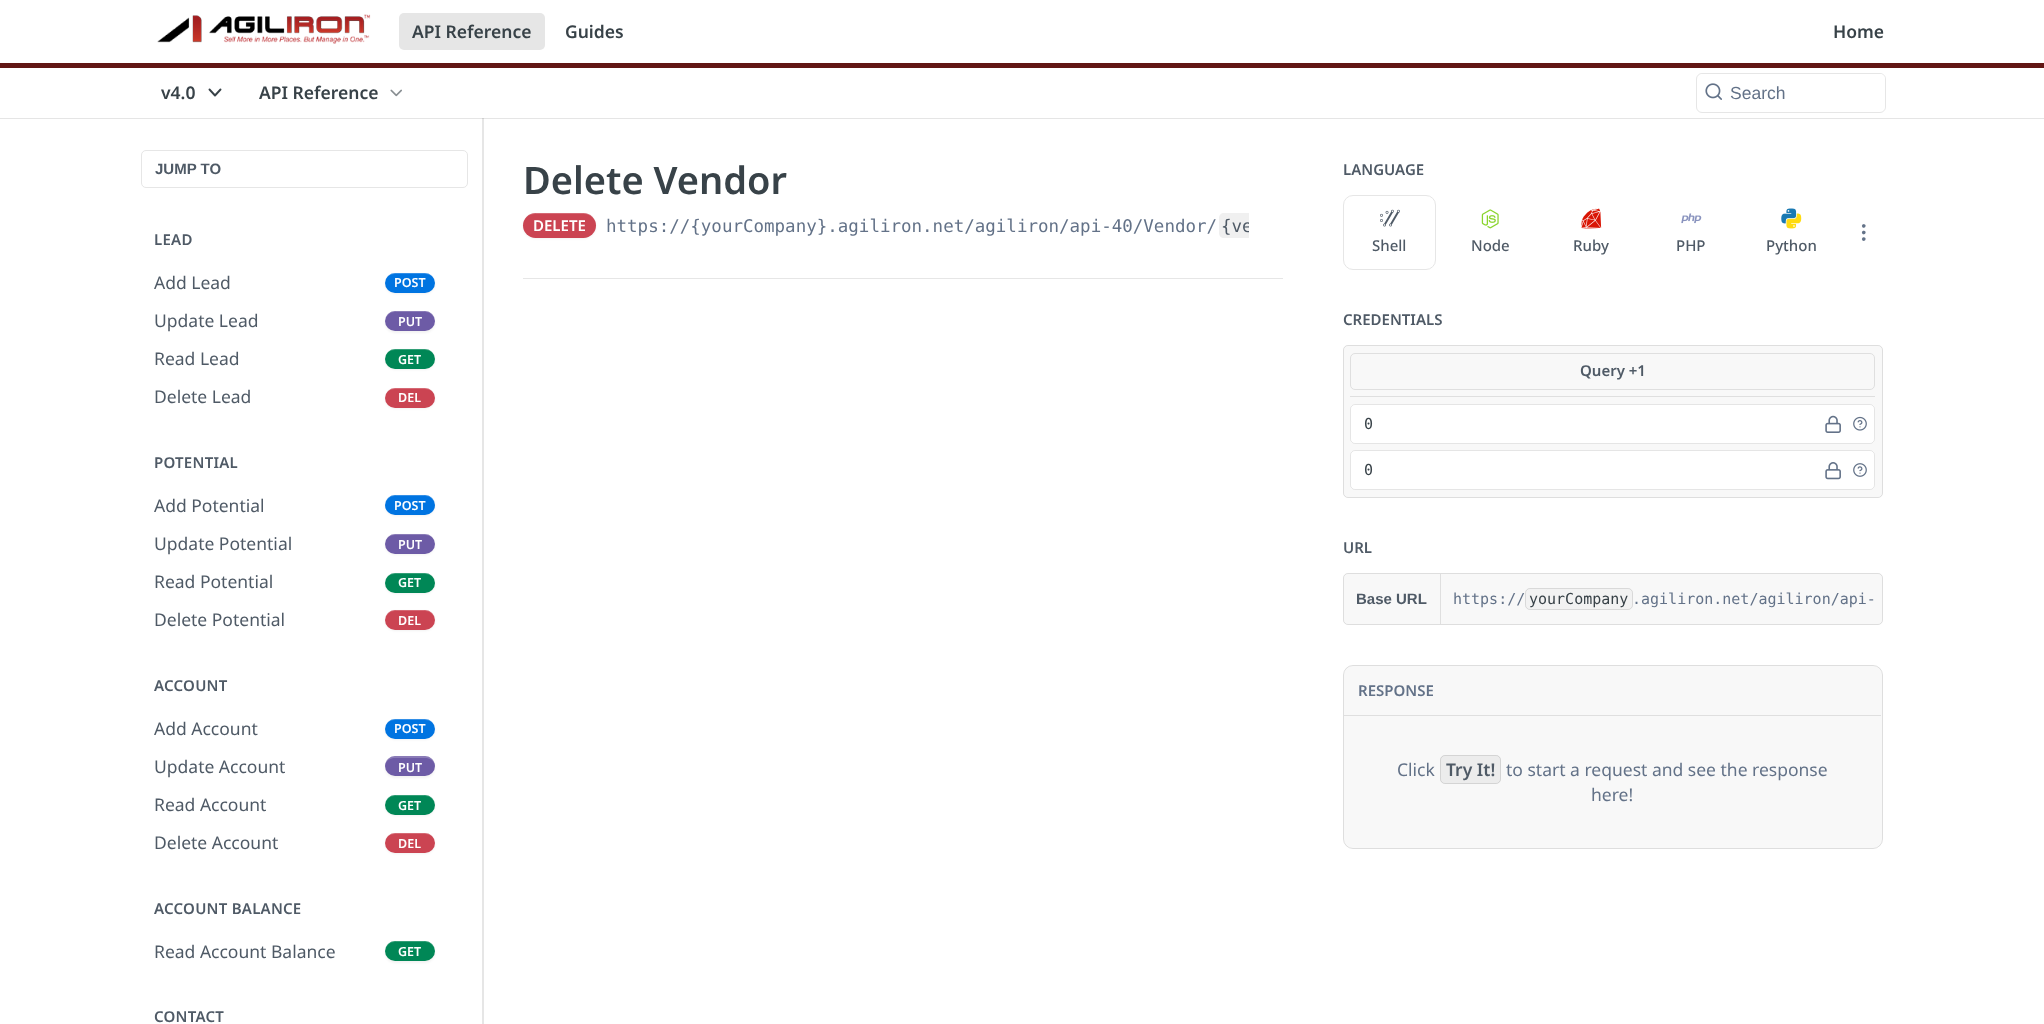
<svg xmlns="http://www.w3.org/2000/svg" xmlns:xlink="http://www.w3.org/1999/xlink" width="2044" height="1024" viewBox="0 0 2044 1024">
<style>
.cls-1{font:600 17.5px Noto Sans;fill:#384248}
.cls-2{font:17.5px Liberation Sans;fill:#637288}
.cls-3{font:bold 15px Liberation Sans;fill:#4f5a66}
.cls-4{font:600 15px Noto Sans;letter-spacing:0.25px;fill:#4f5a66}
.cls-5{font:17.5px Noto Sans;fill:#4f5a66}
.cls-6{font:600 12.5px Noto Sans;fill:#ffffff}
.cls-7{font:600 38px Noto Sans;fill:#384248}
.cls-8{font:600 15px Noto Sans;fill:#ffffff}
.cls-9{font:17.5px DejaVu Sans Mono;fill:#637288}
.cls-10{font:17.5px DejaVu Sans Mono;fill:#4f5a66}
.cls-11{font:600 15px Noto Sans;fill:#4f5a66}
.cls-12{font:500 15px Noto Sans;fill:#4f5a66}
.cls-13{font:15px DejaVu Sans Mono;fill:#384248}
.cls-14{font:15px DejaVu Sans Mono;fill:#637288}
.cls-15{font:600 15px Noto Sans;fill:#637288}
.cls-16{font:17.5px Noto Sans;fill:#637288}
.cls-17{font:600 17.5px Noto Sans;fill:#4f5a66}
</style>
<defs>
<clipPath id="clip1"><rect x="606" y="213" width="643" height="25"/></clipPath>
</defs>
<rect width="100%" height="100%" fill="#ffffff"/>
<path fill="#e6e6e6" d="M124 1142V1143H484V118H482V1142Z"/>
<rect fill="#000000" fill-opacity="0.1" x="0" y="118" width="2044" height="1"/>
<rect fill="#621614" x="0" y="63" width="2044" height="5"/>
<image xlink:href="image0.png" x="157" y="14" width="214" height="30"/>
<rect fill="#e6e6e6" x="399" y="13" width="146" height="37" rx="5"/>
<path fill="none" stroke="#384248" stroke-width="1.9" stroke-linecap="round" stroke-linejoin="round" d="M209.5 89.5L215 95.5L220.5 89.5"/>
<image xlink:href="image1.png" x="390" y="89" width="12" height="8"/>
<rect fill="none" stroke="#e6e6e6" x="1696.5" y="73.5" width="189" height="39" rx="5.5"/>
<rect fill="#ffffff" x="1698" y="74" width="187" height="37" rx="5"/>
<image xlink:href="image2.png" x="1705" y="83" width="17" height="17"/>
<rect fill="none" stroke="#e6e6e6" x="141.5" y="150.5" width="326" height="37" rx="4.5"/>
<rect fill="#000000" fill-opacity="0.05" filter="blur(1px)" x="385" y="274" width="50" height="20" rx="10"/>
<rect fill="#0074e1" x="385" y="273" width="50" height="20" rx="10"/>
<path fill="#ffffff" fill-opacity="0.2" d="M395 274H425C431 274 435 278 435 283C436 270 418 273 410 273C402 273 384 270 385 283C385 278 389 274 395 274Z"/>
<rect fill="#000000" fill-opacity="0.05" filter="blur(1px)" x="385" y="313" width="50" height="20" rx="10"/>
<rect fill="#6d5ba6" x="385" y="311" width="50" height="20" rx="10"/>
<path fill="#ffffff" fill-opacity="0.2" d="M395 312H425C431 312 435 317 435 322C436 308 418 311 410 311C402 311 384 308 385 322C385 317 389 312 395 312Z"/>
<rect fill="#000000" fill-opacity="0.05" filter="blur(1px)" x="385" y="350" width="50" height="20" rx="10"/>
<rect fill="#008756" x="385" y="349" width="50" height="20" rx="10"/>
<path fill="#ffffff" fill-opacity="0.2" d="M395 350H425C431 350 435 354 435 359C436 346 418 349 410 349C402 349 384 346 385 359C385 354 389 350 395 350Z"/>
<rect fill="#000000" fill-opacity="0.05" filter="blur(1px)" x="385" y="389" width="50" height="20" rx="10"/>
<rect fill="#cb4452" x="385" y="388" width="50" height="20" rx="10"/>
<path fill="#ffffff" fill-opacity="0.2" d="M395 389H425C431 389 435 393 435 398C436 385 418 388 410 388C402 388 384 385 385 398C385 393 389 389 395 389Z"/>
<rect fill="#000000" fill-opacity="0.05" filter="blur(1px)" x="385" y="496" width="50" height="20" rx="10"/>
<rect fill="#0074e1" x="385" y="495" width="50" height="20" rx="10"/>
<path fill="#ffffff" fill-opacity="0.2" d="M395 496H425C431 496 435 501 435 506C436 492 418 495 410 495C402 495 384 492 385 506C385 501 389 496 395 496Z"/>
<rect fill="#000000" fill-opacity="0.05" filter="blur(1px)" x="385" y="535" width="50" height="20" rx="10"/>
<rect fill="#6d5ba6" x="385" y="534" width="50" height="20" rx="10"/>
<path fill="#ffffff" fill-opacity="0.2" d="M395 535H425C431 535 435 539 435 544C436 531 418 534 410 534C402 534 384 531 385 544C385 539 389 535 395 535Z"/>
<rect fill="#000000" fill-opacity="0.05" filter="blur(1px)" x="385" y="574" width="50" height="20" rx="10"/>
<rect fill="#008756" x="385" y="573" width="50" height="20" rx="10"/>
<path fill="#ffffff" fill-opacity="0.2" d="M395 574H425C431 574 435 578 435 583C436 570 418 573 410 573C402 573 384 570 385 583C385 578 389 574 395 574Z"/>
<rect fill="#000000" fill-opacity="0.05" filter="blur(1px)" x="385" y="611" width="50" height="20" rx="10"/>
<rect fill="#cb4452" x="385" y="610" width="50" height="20" rx="10"/>
<path fill="#ffffff" fill-opacity="0.2" d="M395 611H425C431 611 435 616 435 621C436 607 418 610 410 610C402 610 384 607 385 621C385 616 389 611 395 611Z"/>
<rect fill="#000000" fill-opacity="0.05" filter="blur(1px)" x="385" y="720" width="50" height="20" rx="10"/>
<rect fill="#0074e1" x="385" y="719" width="50" height="20" rx="10"/>
<path fill="#ffffff" fill-opacity="0.2" d="M395 720H425C431 720 435 724 435 729C436 716 418 719 410 719C402 719 384 716 385 729C385 724 389 720 395 720Z"/>
<rect fill="#000000" fill-opacity="0.05" filter="blur(1px)" x="385" y="758" width="50" height="20" rx="10"/>
<rect fill="#6d5ba6" x="385" y="756" width="50" height="20" rx="10"/>
<path fill="#ffffff" fill-opacity="0.2" d="M395 758H425C431 758 435 762 435 767C436 753 418 756 410 756C402 756 384 753 385 767C385 762 389 758 395 758Z"/>
<rect fill="#000000" fill-opacity="0.05" filter="blur(1px)" x="385" y="796" width="50" height="20" rx="10"/>
<rect fill="#008756" x="385" y="795" width="50" height="20" rx="10"/>
<path fill="#ffffff" fill-opacity="0.2" d="M395 796H425C431 796 435 801 435 806C436 792 418 795 410 795C402 795 384 792 385 806C385 801 389 796 395 796Z"/>
<rect fill="#000000" fill-opacity="0.05" filter="blur(1px)" x="385" y="834" width="50" height="20" rx="10"/>
<rect fill="#cb4452" x="385" y="833" width="50" height="20" rx="10"/>
<path fill="#ffffff" fill-opacity="0.2" d="M395 834H425C431 834 435 838 435 843C436 830 418 833 410 833C402 833 384 830 385 843C385 838 389 834 395 834Z"/>
<rect fill="#000000" fill-opacity="0.05" filter="blur(1px)" x="385" y="943" width="50" height="20" rx="10"/>
<rect fill="#008756" x="385" y="941" width="50" height="20" rx="10"/>
<path fill="#ffffff" fill-opacity="0.2" d="M395 942H425C431 942 435 947 435 952C436 938 418 941 410 941C402 941 384 938 385 952C385 947 389 942 395 942Z"/>
<rect fill="#e6e6e6" x="523" y="278" width="760" height="1"/>
<rect fill="#000000" fill-opacity="0.05" filter="blur(1px)" x="523" y="214" width="73" height="25" rx="12.5"/>
<rect fill="#cb4452" x="523" y="213" width="73" height="25" rx="12.5"/>
<path fill="#ffffff" fill-opacity="0.2" d="M535 214H584C591 214 596 219 596 226C596 220 592 214 586 213H544C537 213 531 212 526 217C529 215 532 214 535 214Z"/>
<path fill="#f0f0f0" d="M1224 213H1249V238H1224C1221 238 1219 236 1219 233V218C1219 215 1221 213 1224 213Z"/>
<image xlink:href="image3.png" x="1861" y="224" width="5" height="17"/>
<rect fill="none" stroke="#e6e6e6" x="1343.5" y="195.5" width="92" height="74" rx="9.5"/>
<image xlink:href="image4.png" x="1380" y="209" width="20" height="18"/>
<image xlink:href="image5.png" x="1481" y="209" width="18" height="20"/>
<image xlink:href="image6.png" x="1581" y="208" width="21" height="21"/>
<image xlink:href="image7.png" x="1681" y="213" width="21" height="11"/>
<image xlink:href="image8.png" x="1781" y="208" width="16" height="16"/>
<image xlink:href="image9.png" x="1786" y="213" width="16" height="16"/>
<rect fill="#f8f8f8" x="1343" y="345" width="540" height="153" rx="5"/>
<rect fill="none" stroke="#000000" stroke-opacity="0.1" x="1343.5" y="345.5" width="539" height="152" rx="4.5"/>
<rect fill="#dfdfdf" x="1350" y="396" width="525" height="1"/>
<rect fill="none" stroke="#dfdfdf" x="1350.5" y="353.5" width="524" height="36" rx="4.5"/>
<rect fill="#ffffff" x="1350" y="404" width="525" height="40" rx="5"/>
<rect fill="none" stroke="#000000" stroke-opacity="0.1" x="1350.5" y="404.5" width="524" height="39" rx="4.5"/>
<image xlink:href="image10.png" x="1825" y="415" width="16" height="18"/>
<image xlink:href="image11.png" x="1853" y="416" width="14" height="15"/>
<rect fill="#ffffff" x="1350" y="450" width="525" height="40" rx="5"/>
<rect fill="none" stroke="#000000" stroke-opacity="0.1" x="1350.5" y="450.5" width="524" height="39" rx="4.5"/>
<image xlink:href="image12.png" x="1825" y="462" width="16" height="18"/>
<image xlink:href="image13.png" x="1853" y="463" width="14" height="14"/>
<rect fill="#f8f8f8" x="1343" y="573" width="540" height="52" rx="5"/>
<rect fill="none" stroke="#000000" stroke-opacity="0.1" x="1343.5" y="573.5" width="539" height="51" rx="4.5"/>
<rect fill="#dfdfdf" x="1440" y="574" width="1" height="50"/>
<rect fill="#f2f2f2" x="1525" y="588" width="108" height="22" rx="5"/>
<rect fill="none" stroke="#000000" stroke-opacity="0.1" x="1525.5" y="588.5" width="107" height="21" rx="4.5"/>
<rect fill="#f8f8f8" x="1343" y="665" width="540" height="184" rx="10"/>
<rect fill="none" stroke="#000000" stroke-opacity="0.1" x="1343.5" y="665.5" width="539" height="183" rx="9.5"/>
<rect fill="#dfdfdf" x="1344" y="715" width="537" height="1"/>
<rect fill="#ececec" x="1440" y="755" width="61" height="29" rx="5"/>
<rect fill="none" stroke="#000000" stroke-opacity="0.1" x="1440.5" y="755.5" width="60" height="28" rx="4.5"/>
<text class="cls-1" x="412" y="38">API Reference</text>
<text class="cls-1" x="565" y="38">Guides</text>
<text class="cls-1" x="1833" y="38">Home</text>
<text class="cls-1" x="161" y="99">v4.0</text>
<text class="cls-1" x="259" y="99">API Reference</text>
<text class="cls-2" x="1730" y="99">Search</text>
<text class="cls-3" x="155" y="174">JUMP TO</text>
<text class="cls-4" x="154" y="245">LEAD</text>
<text class="cls-5" x="154" y="289">Add Lead</text>
<text class="cls-6" x="394" y="287">POST</text>
<text class="cls-5" x="154" y="327">Update Lead</text>
<text class="cls-6" x="398" y="326">PUT</text>
<text class="cls-5" x="154" y="365">Read Lead</text>
<text class="cls-6" x="398" y="364">GET</text>
<text class="cls-5" x="154" y="403">Delete Lead</text>
<text class="cls-6" x="398" y="402">DEL</text>
<text class="cls-4" x="154" y="468">POTENTIAL</text>
<text class="cls-5" x="154" y="512">Add Potential</text>
<text class="cls-6" x="394" y="510">POST</text>
<text class="cls-5" x="154" y="550">Update Potential</text>
<text class="cls-6" x="398" y="549">PUT</text>
<text class="cls-5" x="154" y="588">Read Potential</text>
<text class="cls-6" x="398" y="587">GET</text>
<text class="cls-5" x="154" y="626">Delete Potential</text>
<text class="cls-6" x="398" y="625">DEL</text>
<text class="cls-4" x="154" y="691">ACCOUNT</text>
<text class="cls-5" x="154" y="735">Add Account</text>
<text class="cls-6" x="394" y="733">POST</text>
<text class="cls-5" x="154" y="773">Update Account</text>
<text class="cls-6" x="398" y="772">PUT</text>
<text class="cls-5" x="154" y="811">Read Account</text>
<text class="cls-6" x="398" y="810">GET</text>
<text class="cls-5" x="154" y="849">Delete Account</text>
<text class="cls-6" x="398" y="848">DEL</text>
<text class="cls-4" x="154" y="914">ACCOUNT BALANCE</text>
<text class="cls-5" x="154" y="958">Read Account Balance</text>
<text class="cls-6" x="398" y="956">GET</text>
<text class="cls-4" x="154" y="1022">CONTACT</text>
<text class="cls-7" x="523" y="194">Delete Vendor</text>
<text class="cls-8" x="533" y="231">DELETE</text>
<text class="cls-9" x="606" y="232">https://{yourCompany}.agiliron.net/agiliron/api-40/Vendor/</text>
<g clip-path="url(#clip1)">
<text class="cls-10" x="1221" y="232">{ve</text>
</g>
<text class="cls-11" x="1343" y="175">LANGUAGE</text>
<text class="cls-12" x="1372" y="251">Shell</text>
<text class="cls-12" x="1471" y="251">Node</text>
<text class="cls-12" x="1573" y="251">Ruby</text>
<text class="cls-12" x="1676" y="251">PHP</text>
<text class="cls-12" x="1766" y="251">Python</text>
<text class="cls-11" x="1343" y="325">CREDENTIALS</text>
<text class="cls-11" x="1580" y="376">Query +1</text>
<text class="cls-13" x="1364" y="429">0</text>
<text class="cls-13" x="1364" y="475">0</text>
<text class="cls-11" x="1343" y="553">URL</text>
<text class="cls-3" x="1356" y="604">Base URL</text>
<text class="cls-14" x="1453" y="604">https://</text>
<text class="cls-13" x="1529" y="604">yourCompany</text>
<text class="cls-14" x="1632" y="604">.agiliron.net/agiliron/api-</text>
<text class="cls-15" x="1358" y="696">RESPONSE</text>
<text class="cls-16" x="1397" y="776">Click</text>
<text class="cls-17" x="1446" y="776">Try It!</text>
<text class="cls-16" x="1506" y="776">to start a request and see the response</text>
<text class="cls-16" x="1591" y="801">here!</text>
</svg>
